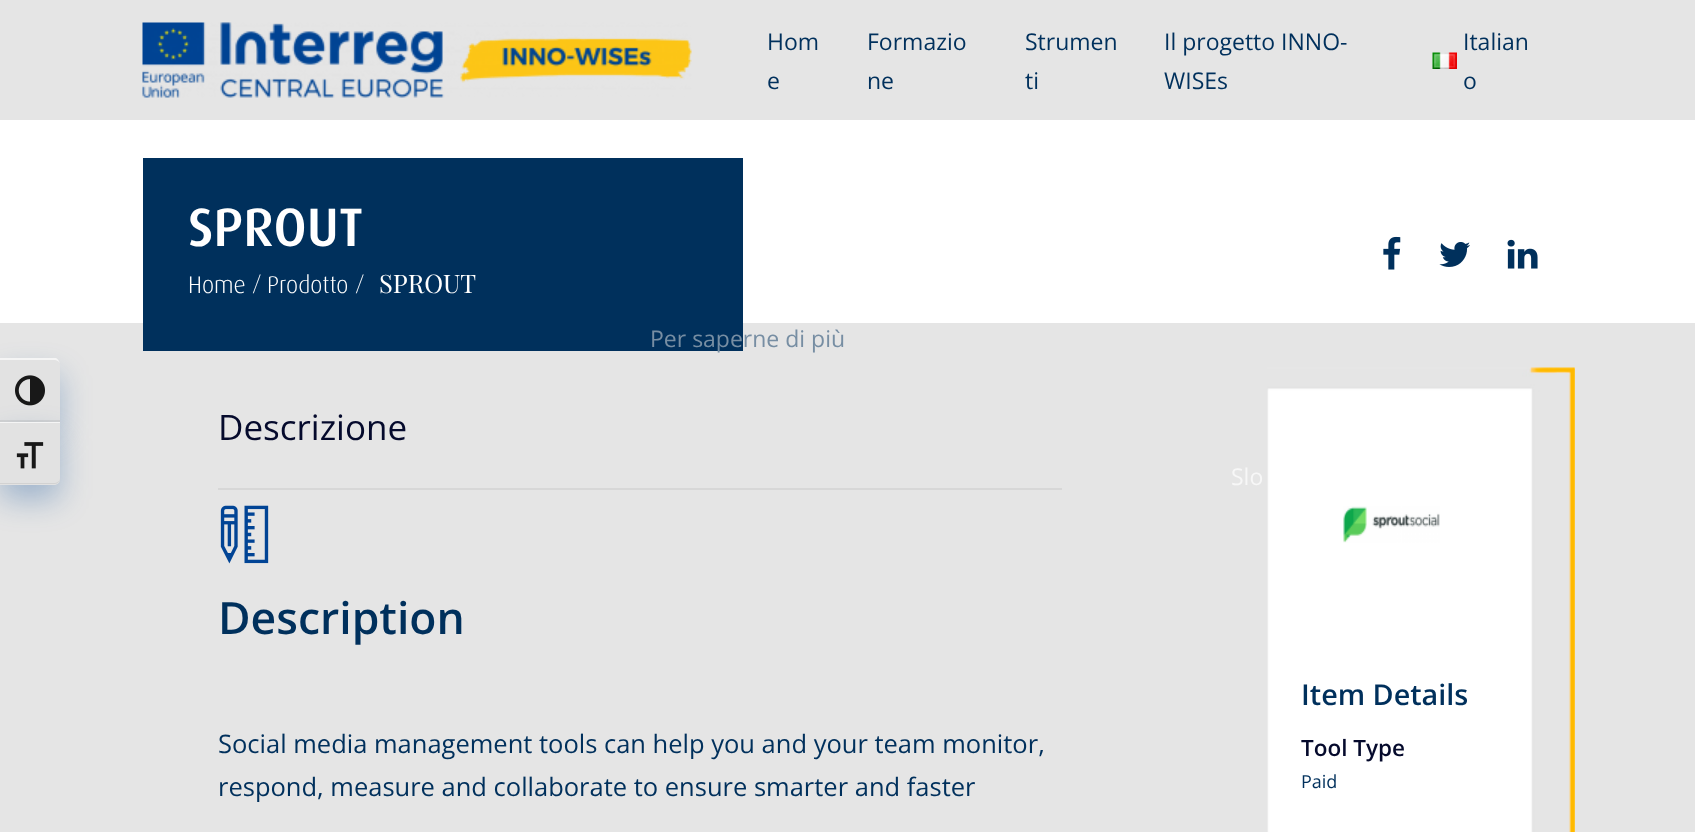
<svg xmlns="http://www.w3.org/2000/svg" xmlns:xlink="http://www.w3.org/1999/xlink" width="1695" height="832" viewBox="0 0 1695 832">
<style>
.cls-1{font:23px Open Sans;fill:#00305c}
.cls-2{font:23px Open Sans;fill:#778ea3}
.cls-3{font:23px Open Sans;fill:#f7f7f7}
.cls-4{font:500 54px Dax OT;fill:#ffffff}
.cls-5{font:300 24px Dax OT;fill:#ffffff}
.cls-6{font:25.5px Playfair Display;fill:#ffffff}
.cls-7{font:35px Open Sans;fill:#050a2c}
.cls-8{font:600 44.5px Open Sans;fill:#00305c}
.cls-9{font:25.5px Open Sans;fill:#00305c}
.cls-10{font:600 28.75px Open Sans;fill:#00305c}
.cls-11{font:600 22.5px Open Sans;fill:#050a2c}
.cls-12{font:18px Open Sans;fill:#00305c}
</style>
<rect width="100%" height="100%" fill="#ffffff"/>
<rect fill="#e5e5e5" x="0" y="323" width="1695" height="509"/>
<rect fill="#014495" fill-opacity="0.3" filter="blur(15px)" x="0" y="374" width="60" height="63" rx="6"/>
<path fill="#e2e2e2" d="M0 359H54C57.5 359 60 361.5 60 365V422H0Z"/>
<path fill="#f5f5f5" d="M0 360H54C57 360 60 362 60 364C60 362 58 359 56 358H0Z"/>
<rect fill="#d2d2d2" x="0" y="420" width="60" height="2"/>
<image xlink:href="image0.png" x="15" y="375" width="30" height="31"/>
<rect fill="#014495" fill-opacity="0.3" filter="blur(15px)" x="0" y="437" width="60" height="63" rx="6"/>
<path fill="#e2e2e2" d="M0 422H60V479C60 482.5 57.5 485 54 485H0Z"/>
<rect fill="#f5f5f5" x="0" y="422" width="60" height="1"/>
<path fill="#d2d2d2" d="M0 483V484H54C57 484 60 482 60 478C60 481 57 483 54 483Z"/>
<image xlink:href="image1.png" x="16" y="442" width="28" height="27"/>
<rect fill="#e5e5e5" x="0" y="0" width="1695" height="120"/>
<image xlink:href="image2.png" x="142" y="22" width="550" height="76"/>
<image xlink:href="image3.png" x="1432" y="52" width="25" height="17"/>
<rect fill="#00305c" x="143" y="158" width="600" height="193"/>
<image xlink:href="image4.png" x="1383" y="236" width="18" height="34"/>
<image xlink:href="image5.png" x="1439" y="242" width="31" height="25"/>
<image xlink:href="image6.png" x="1507" y="239" width="31" height="30"/>
<rect fill="#d7d7d7" x="218" y="488" width="844" height="2"/>
<image xlink:href="image7.png" x="220" y="505" width="49" height="59"/>
<image xlink:href="image8.png" x="1267" y="367" width="308" height="465"/>
<image xlink:href="image9.png" x="1343" y="506" width="97" height="37"/>
<text class="cls-1"><tspan x="1164" y="50">Il progetto INNO-</tspan><tspan x="1164" y="89">WISEs</tspan></text>
<text class="cls-1"><tspan x="867" y="50">Formazio</tspan><tspan x="867" y="89">ne</tspan></text>
<text class="cls-2" x="650" y="347">Per saperne di più</text>
<text class="cls-1"><tspan x="1463" y="50">Italian</tspan><tspan x="1463" y="89">o</tspan></text>
<text class="cls-3" x="1231" y="485">Slo</text>
<text class="cls-1"><tspan x="767" y="50">Hom</tspan><tspan x="767" y="89">e</tspan></text>
<text class="cls-1"><tspan x="1025" y="50">Strumen</tspan><tspan x="1025" y="89">ti</tspan></text>
<text class="cls-4" x="188" y="246">SPROUT</text>
<text class="cls-5" x="188" y="293">Home</text>
<text class="cls-6" x="252" y="293">/</text>
<text class="cls-5" x="267" y="293">Prodotto</text>
<text class="cls-6" x="355" y="293">/</text>
<text class="cls-6" x="379" y="293">SPROUT</text>
<text class="cls-7" x="218" y="440">Descrizione</text>
<text class="cls-8" x="218" y="634">Description</text>
<text class="cls-9"><tspan x="218" y="753">Social media management tools can help you and your team monitor,</tspan><tspan x="218" y="796">respond, measure and collaborate to ensure smarter and faster</tspan></text>
<text class="cls-10" x="1301" y="705">Item Details</text>
<text class="cls-11" x="1301" y="756">Tool Type</text>
<text class="cls-12" x="1301" y="788">Paid</text>
</svg>
